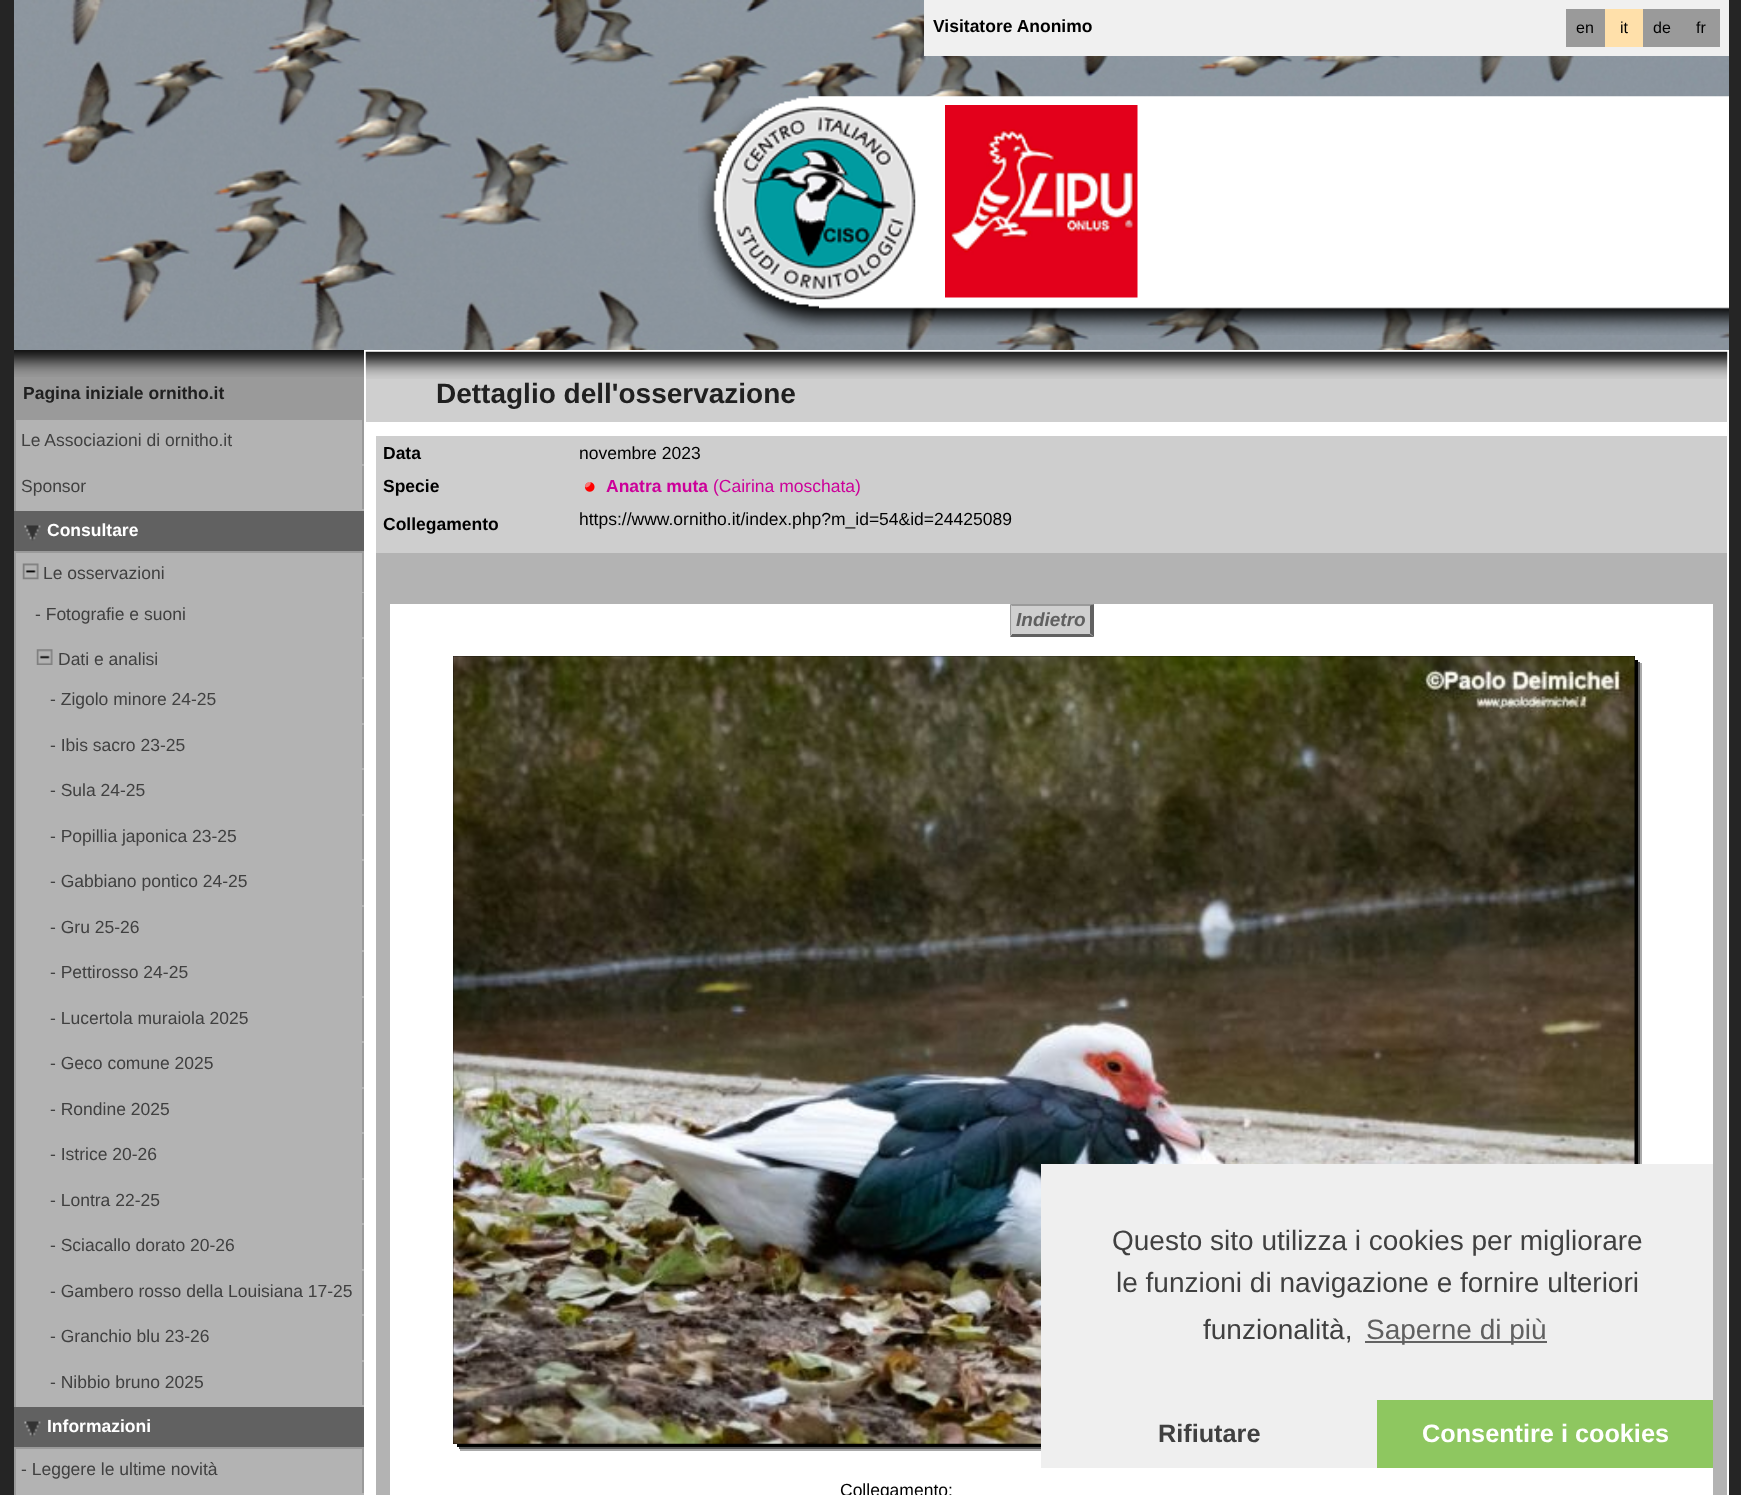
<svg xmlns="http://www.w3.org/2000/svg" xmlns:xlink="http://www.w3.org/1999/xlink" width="1741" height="1495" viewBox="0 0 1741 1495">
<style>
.cls-1{font:bold 17.5px Liberation Sans;fill:#000000}
.cls-2{font:16px Liberation Sans;fill:#000000}
.cls-3{font:bold 17.5px Liberation Sans;fill:#202020}
.cls-4{font:17.5px Liberation Sans;fill:#404040}
.cls-5{font:bold 17.5px Liberation Sans;fill:#ffffff}
.cls-6{font:bold 28px Liberation Sans;fill:#202020}
.cls-7{font:17.5px Liberation Sans;fill:#000000}
.cls-8{font:bold 17.5px Liberation Sans;fill:#cc0099}
.cls-9{font:17.5px Liberation Sans;fill:#cc0099}
.cls-10{font:italic bold 19px Liberation Sans;fill:#606060}
.cls-11{font:28px Liberation Sans;fill:#404040}
.cls-12{font:28px Liberation Sans;fill:#606060}
.cls-13{font:bold 25.25px Liberation Sans;fill:#404040}
.cls-14{font:bold 25.25px Liberation Sans;fill:#ffffff}
</style>
<rect width="100%" height="100%" fill="#252525"/>
<image xlink:href="image0.png" x="14" y="0" width="1715" height="350"/>
<rect fill="#f0f0f0" x="924" y="0" width="805" height="56"/>
<rect fill="#9a9a9a" x="1566" y="9" width="39" height="38"/>
<rect fill="#ffe0aa" x="1605" y="9" width="38" height="38"/>
<rect fill="#9a9a9a" x="1643" y="9" width="77" height="38"/>
<image xlink:href="image1.png" x="698" y="96" width="121" height="239"/>
<image xlink:href="image2.png" x="819" y="96" width="910" height="239"/>
<image xlink:href="image3.png" x="722" y="106" width="194" height="194"/>
<image xlink:href="image4.png" x="945" y="105" width="193" height="193"/>
<rect fill="#ffffff" x="364" y="350" width="1365" height="1145"/>
<rect fill="#9a9a9a" x="14" y="350" width="350" height="70"/>
<image xlink:href="image5.png" x="14" y="350" width="350" height="27"/>
<rect fill="#b3b3b3" x="16" y="420" width="346" height="44"/>
<rect fill="#9a9a9a" x="362" y="420" width="2" height="91"/>
<rect fill="#b3b3b3" x="14" y="464" width="350" height="2"/>
<rect fill="#9a9a9a" x="14" y="420" width="2" height="46"/>
<rect fill="#b3b3b3" x="16" y="466" width="346" height="43"/>
<rect fill="#b3b3b3" x="14" y="509" width="350" height="2"/>
<rect fill="#9a9a9a" x="14" y="466" width="2" height="45"/>
<rect fill="#616161" x="14" y="511" width="350" height="40"/>
<rect fill="#9a9a9a" x="14" y="551" width="350" height="2"/>
<image xlink:href="image6.png" x="24" y="525" width="17" height="16"/>
<rect fill="#b3b3b3" x="16" y="553" width="346" height="39"/>
<rect fill="#9a9a9a" x="362" y="553" width="2" height="854"/>
<rect fill="#b3b3b3" x="14" y="592" width="350" height="1"/>
<rect fill="#9a9a9a" x="14" y="553" width="2" height="40"/>
<image xlink:href="image7.png" x="22" y="563" width="17" height="17"/>
<rect fill="#b3b3b3" x="16" y="593" width="346" height="44"/>
<rect fill="#b3b3b3" x="14" y="637" width="350" height="2"/>
<rect fill="#9a9a9a" x="14" y="593" width="2" height="46"/>
<rect fill="#b3b3b3" x="16" y="639" width="346" height="38"/>
<rect fill="#b3b3b3" x="14" y="677" width="350" height="2"/>
<rect fill="#9a9a9a" x="14" y="639" width="2" height="40"/>
<image xlink:href="image8.png" x="36" y="649" width="17" height="16"/>
<rect fill="#b3b3b3" x="16" y="679" width="346" height="44"/>
<rect fill="#b3b3b3" x="14" y="723" width="350" height="2"/>
<rect fill="#9a9a9a" x="14" y="679" width="2" height="46"/>
<rect fill="#b3b3b3" x="16" y="725" width="346" height="43"/>
<rect fill="#b3b3b3" x="14" y="768" width="350" height="2"/>
<rect fill="#9a9a9a" x="14" y="725" width="2" height="45"/>
<rect fill="#b3b3b3" x="16" y="770" width="346" height="44"/>
<rect fill="#b3b3b3" x="14" y="814" width="350" height="2"/>
<rect fill="#9a9a9a" x="14" y="770" width="2" height="46"/>
<rect fill="#b3b3b3" x="16" y="816" width="346" height="43"/>
<rect fill="#b3b3b3" x="14" y="859" width="350" height="2"/>
<rect fill="#9a9a9a" x="14" y="816" width="2" height="45"/>
<rect fill="#b3b3b3" x="16" y="861" width="346" height="44"/>
<rect fill="#b3b3b3" x="14" y="905" width="350" height="2"/>
<rect fill="#9a9a9a" x="14" y="861" width="2" height="46"/>
<rect fill="#b3b3b3" x="16" y="907" width="346" height="43"/>
<rect fill="#b3b3b3" x="14" y="950" width="350" height="2"/>
<rect fill="#9a9a9a" x="14" y="907" width="2" height="45"/>
<rect fill="#b3b3b3" x="16" y="952" width="346" height="44"/>
<rect fill="#b3b3b3" x="14" y="996" width="350" height="2"/>
<rect fill="#9a9a9a" x="14" y="952" width="2" height="46"/>
<rect fill="#b3b3b3" x="16" y="998" width="346" height="43"/>
<rect fill="#b3b3b3" x="14" y="1041" width="350" height="2"/>
<rect fill="#9a9a9a" x="14" y="998" width="2" height="45"/>
<rect fill="#b3b3b3" x="16" y="1043" width="346" height="44"/>
<rect fill="#b3b3b3" x="14" y="1087" width="350" height="2"/>
<rect fill="#9a9a9a" x="14" y="1043" width="2" height="46"/>
<rect fill="#b3b3b3" x="16" y="1089" width="346" height="43"/>
<rect fill="#b3b3b3" x="14" y="1132" width="350" height="2"/>
<rect fill="#9a9a9a" x="14" y="1089" width="2" height="45"/>
<rect fill="#b3b3b3" x="16" y="1134" width="346" height="44"/>
<rect fill="#b3b3b3" x="14" y="1178" width="350" height="2"/>
<rect fill="#9a9a9a" x="14" y="1134" width="2" height="46"/>
<rect fill="#b3b3b3" x="16" y="1180" width="346" height="43"/>
<rect fill="#b3b3b3" x="14" y="1223" width="350" height="2"/>
<rect fill="#9a9a9a" x="14" y="1180" width="2" height="45"/>
<rect fill="#b3b3b3" x="16" y="1225" width="346" height="44"/>
<rect fill="#b3b3b3" x="14" y="1269" width="350" height="2"/>
<rect fill="#9a9a9a" x="14" y="1225" width="2" height="46"/>
<rect fill="#b3b3b3" x="16" y="1271" width="346" height="43"/>
<rect fill="#b3b3b3" x="14" y="1314" width="350" height="2"/>
<rect fill="#9a9a9a" x="14" y="1271" width="2" height="45"/>
<rect fill="#b3b3b3" x="16" y="1316" width="346" height="44"/>
<rect fill="#b3b3b3" x="14" y="1360" width="350" height="2"/>
<rect fill="#9a9a9a" x="14" y="1316" width="2" height="46"/>
<rect fill="#b3b3b3" x="16" y="1362" width="346" height="43"/>
<rect fill="#b3b3b3" x="14" y="1405" width="350" height="2"/>
<rect fill="#9a9a9a" x="14" y="1362" width="2" height="45"/>
<rect fill="#616161" x="14" y="1407" width="350" height="40"/>
<rect fill="#9a9a9a" x="14" y="1447" width="350" height="2"/>
<image xlink:href="image6.png" x="24" y="1421" width="17" height="16"/>
<rect fill="#b3b3b3" x="16" y="1449" width="346" height="44"/>
<rect fill="#9a9a9a" x="362" y="1449" width="2" height="46"/>
<rect fill="#b3b3b3" x="14" y="1493" width="350" height="2"/>
<rect fill="#9a9a9a" x="14" y="1449" width="2" height="46"/>
<rect fill="#cfcfcf" x="366" y="352" width="1361" height="70"/>
<image xlink:href="image9.png" x="365" y="351" width="1363" height="28"/>
<rect fill="#cecece" x="376" y="436" width="1351" height="117"/>
<image xlink:href="image10.png" x="584" y="482" width="11" height="10"/>
<image xlink:href="image11.png" x="585" y="482" width="6" height="6"/>
<rect fill="#b3b3b3" x="376" y="553" width="1351" height="942"/>
<rect fill="#ffffff" x="390" y="604" width="1323" height="891"/>
<rect fill="#cfcfcf" x="1012" y="606" width="78" height="28"/>
<path fill="#9a9a9a" d="M1010 604H1094L1090 606H1012Z"/>
<path fill="#616161" d="M1094 604V637L1090 633.5V605.5Z"/>
<path fill="#616161" d="M1094 637H1010L1012 634H1090Z"/>
<path fill="#9a9a9a" d="M1010 637V604L1011.5 605.5V633.5Z"/>
<rect fill="#aaaaaa" x="460" y="663" width="1182" height="788"/>
<rect fill="#555555" x="459" y="662" width="1181" height="787"/>
<rect fill="#000000" x="457" y="660" width="1181" height="787"/>
<rect fill="#000000" x="453" y="656" width="1182" height="788"/>
<image xlink:href="image12.png" x="453" y="656" width="1182" height="788"/>
<rect fill="#efefef" x="1041" y="1164" width="672" height="304"/>
<rect fill="#636363" x="1365" y="1341" width="182" height="2"/>
<rect fill="#8ec760" x="1377" y="1400" width="336" height="68"/>
<text class="cls-1" x="933" y="32">Visitatore Anonimo</text>
<text class="cls-2" x="1576" y="33">en</text>
<text class="cls-2" x="1620" y="33">it</text>
<text class="cls-2" x="1653" y="33">de</text>
<text class="cls-2" x="1696" y="33">fr</text>
<text class="cls-3" x="23" y="399">Pagina iniziale ornitho.it</text>
<text class="cls-4" x="21" y="446">Le Associazioni di ornitho.it</text>
<text class="cls-4" x="21" y="492">Sponsor</text>
<text class="cls-5" x="47" y="536">Consultare</text>
<text class="cls-4" x="43" y="579">Le osservazioni</text>
<text class="cls-4" x="35" y="620">- Fotografie e suoni</text>
<text class="cls-4" x="58" y="665">Dati e analisi</text>
<text class="cls-4" x="50" y="705">- Zigolo minore 24-25</text>
<text class="cls-4" x="50" y="751">- Ibis sacro 23-25</text>
<text class="cls-4" x="50" y="796">- Sula 24-25</text>
<text class="cls-4" x="50" y="842">- Popillia japonica 23-25</text>
<text class="cls-4" x="50" y="887">- Gabbiano pontico 24-25</text>
<text class="cls-4" x="50" y="933">- Gru 25-26</text>
<text class="cls-4" x="50" y="978">- Pettirosso 24-25</text>
<text class="cls-4" x="50" y="1024">- Lucertola muraiola 2025</text>
<text class="cls-4" x="50" y="1069">- Geco comune 2025</text>
<text class="cls-4" x="50" y="1115">- Rondine 2025</text>
<text class="cls-4" x="50" y="1160">- Istrice 20-26</text>
<text class="cls-4" x="50" y="1206">- Lontra 22-25</text>
<text class="cls-4" x="50" y="1251">- Sciacallo dorato 20-26</text>
<text class="cls-4" x="50" y="1297">- Gambero rosso della Louisiana 17-25</text>
<text class="cls-4" x="50" y="1342">- Granchio blu 23-26</text>
<text class="cls-4" x="50" y="1388">- Nibbio bruno 2025</text>
<text class="cls-5" x="47" y="1432">Informazioni</text>
<text class="cls-4" x="21" y="1475">- Leggere le ultime novità</text>
<text class="cls-6" x="436" y="403">Dettaglio dell'osservazione</text>
<text class="cls-1" x="383" y="459">Data</text>
<text class="cls-7" x="579" y="459">novembre 2023</text>
<text class="cls-1" x="383" y="492">Specie</text>
<text class="cls-8" x="606" y="492">Anatra muta</text>
<text class="cls-9" x="713" y="492">(Cairina moschata)</text>
<text class="cls-1" x="383" y="530">Collegamento</text>
<text class="cls-7" x="579" y="525">https://www.ornitho.it/index.php?m_id=54&amp;id=24425089</text>
<text class="cls-10" x="1016" y="626">Indietro</text>
<text class="cls-7" x="840" y="1496">Collegamento:</text>
<text class="cls-11" x="1112" y="1250">Questo sito utilizza i cookies per migliorare</text>
<text class="cls-11" x="1116" y="1292">le funzioni di navigazione e fornire ulteriori</text>
<text class="cls-11" x="1203" y="1339">funzionalità,</text>
<text class="cls-12" x="1366" y="1339">Saperne di più</text>
<text class="cls-13" x="1158" y="1442">Rifiutare</text>
<text class="cls-14" x="1422" y="1442">Consentire i cookies</text>
</svg>
